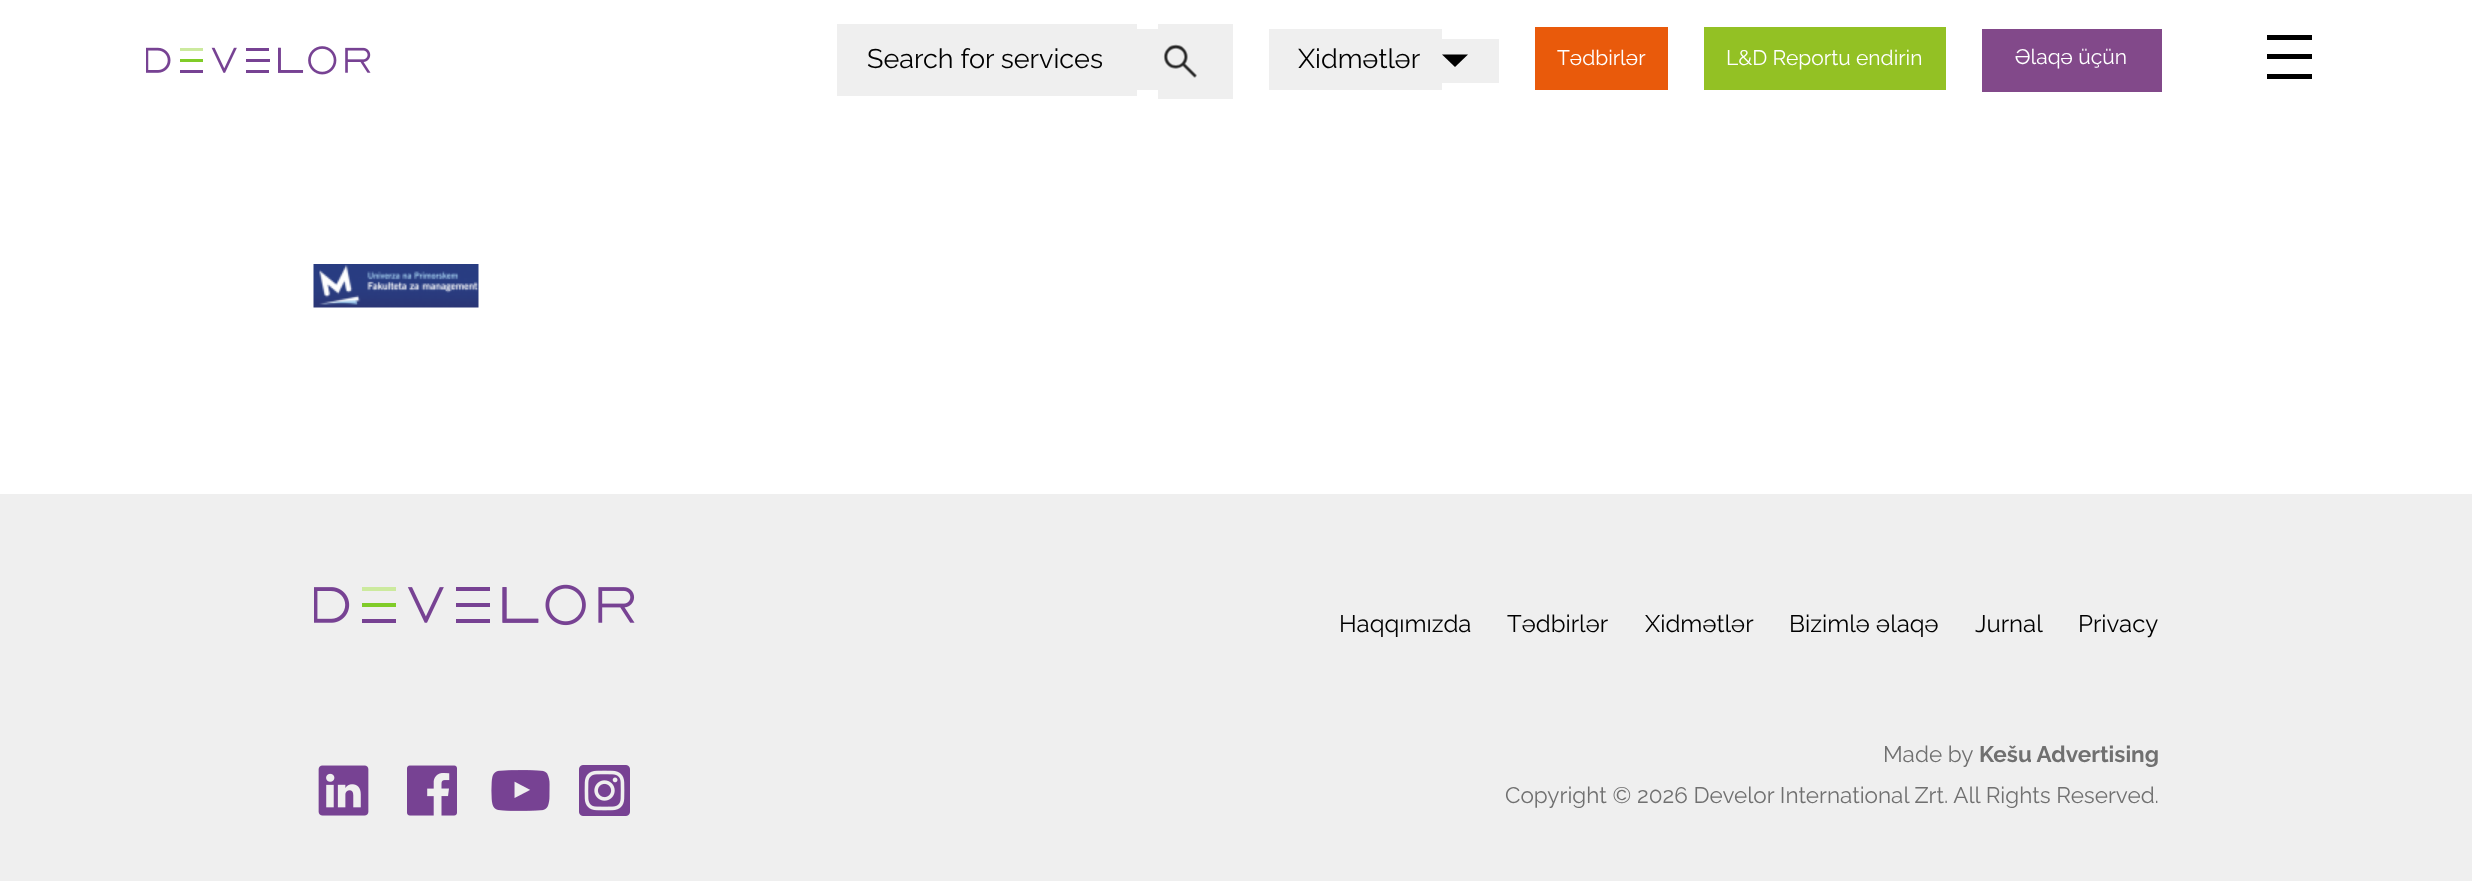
<svg xmlns="http://www.w3.org/2000/svg" xmlns:xlink="http://www.w3.org/1999/xlink" width="2472" height="882" viewBox="0 0 2472 882">
<style>
.cls-1{font:100 27px Raleway;fill:#000000}
.cls-2{font:100 21px Raleway;fill:#ffffff}
.cls-3{font:100 24px Raleway;fill:#000000}
.cls-4{font:100 22.5px Raleway;fill:#707070}
.cls-5{font:100 22.5px 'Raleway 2';fill:#707070}
</style>
<rect width="100%" height="100%" fill="#ffffff"/>
<image xlink:href="image0.png" x="146" y="46" width="225" height="29"/>
<rect fill="#efefef" x="837" y="24" width="300" height="72"/>
<rect fill="#efefef" x="1137" y="29" width="21" height="61"/>
<rect fill="#efefef" x="1158" y="24" width="75" height="75"/>
<image xlink:href="image1.png" x="1163" y="44" width="34" height="34"/>
<rect fill="#efefef" x="1269" y="29" width="173" height="61"/>
<rect fill="#efefef" x="1442" y="39" width="57" height="44"/>
<path fill="#000000" d="M1455 67L1442 54.5H1468Z"/>
<rect fill="#e95a0b" x="1535" y="27" width="133" height="63"/>
<rect fill="#93c124" x="1704" y="27" width="242" height="63"/>
<rect fill="#82498a" x="1982" y="29" width="180" height="63"/>
<rect fill="#000000" x="2267" y="74" width="45" height="5"/>
<rect fill="#000000" x="2267" y="35" width="45" height="5"/>
<rect fill="#000000" x="2267" y="54" width="45" height="5"/>
<image xlink:href="image2.png" x="313" y="264" width="166" height="44"/>
<rect fill="#efefef" x="0" y="494" width="2472" height="387"/>
<image xlink:href="image3.png" x="314" y="584" width="321" height="42"/>
<image xlink:href="image4.png" x="318" y="765" width="51" height="51"/>
<image xlink:href="image5.png" x="407" y="765" width="50" height="51"/>
<image xlink:href="image6.png" x="491" y="770" width="59" height="41"/>
<image xlink:href="image7.png" x="579" y="765" width="51" height="51"/>
<text class="cls-1" x="867" y="68">Search for services</text>
<text class="cls-1" x="1298" y="68">Xidmətlər</text>
<text class="cls-2" x="1557" y="65">Tədbirlər</text>
<text class="cls-2" x="1726" y="65">L&amp;D Reportu endirin</text>
<text class="cls-2" x="2015" y="64">Əlaqə üçün</text>
<text class="cls-3" x="1339" y="632">Haqqımızda</text>
<text class="cls-3" x="1507" y="632">Tədbirlər</text>
<text class="cls-3" x="1645" y="632">Xidmətlər</text>
<text class="cls-3" x="1789" y="632">Bizimlə əlaqə</text>
<text class="cls-3" x="1975" y="632">Jurnal</text>
<text class="cls-3" x="2078" y="632">Privacy</text>
<text class="cls-4" x="1883" y="762">Made by</text>
<text class="cls-5" x="1979" y="762">Kešu Advertising</text>
<text class="cls-4" x="1505" y="803">Copyright © 2026 Develor International Zrt. All Rights Reserved.</text>
</svg>
